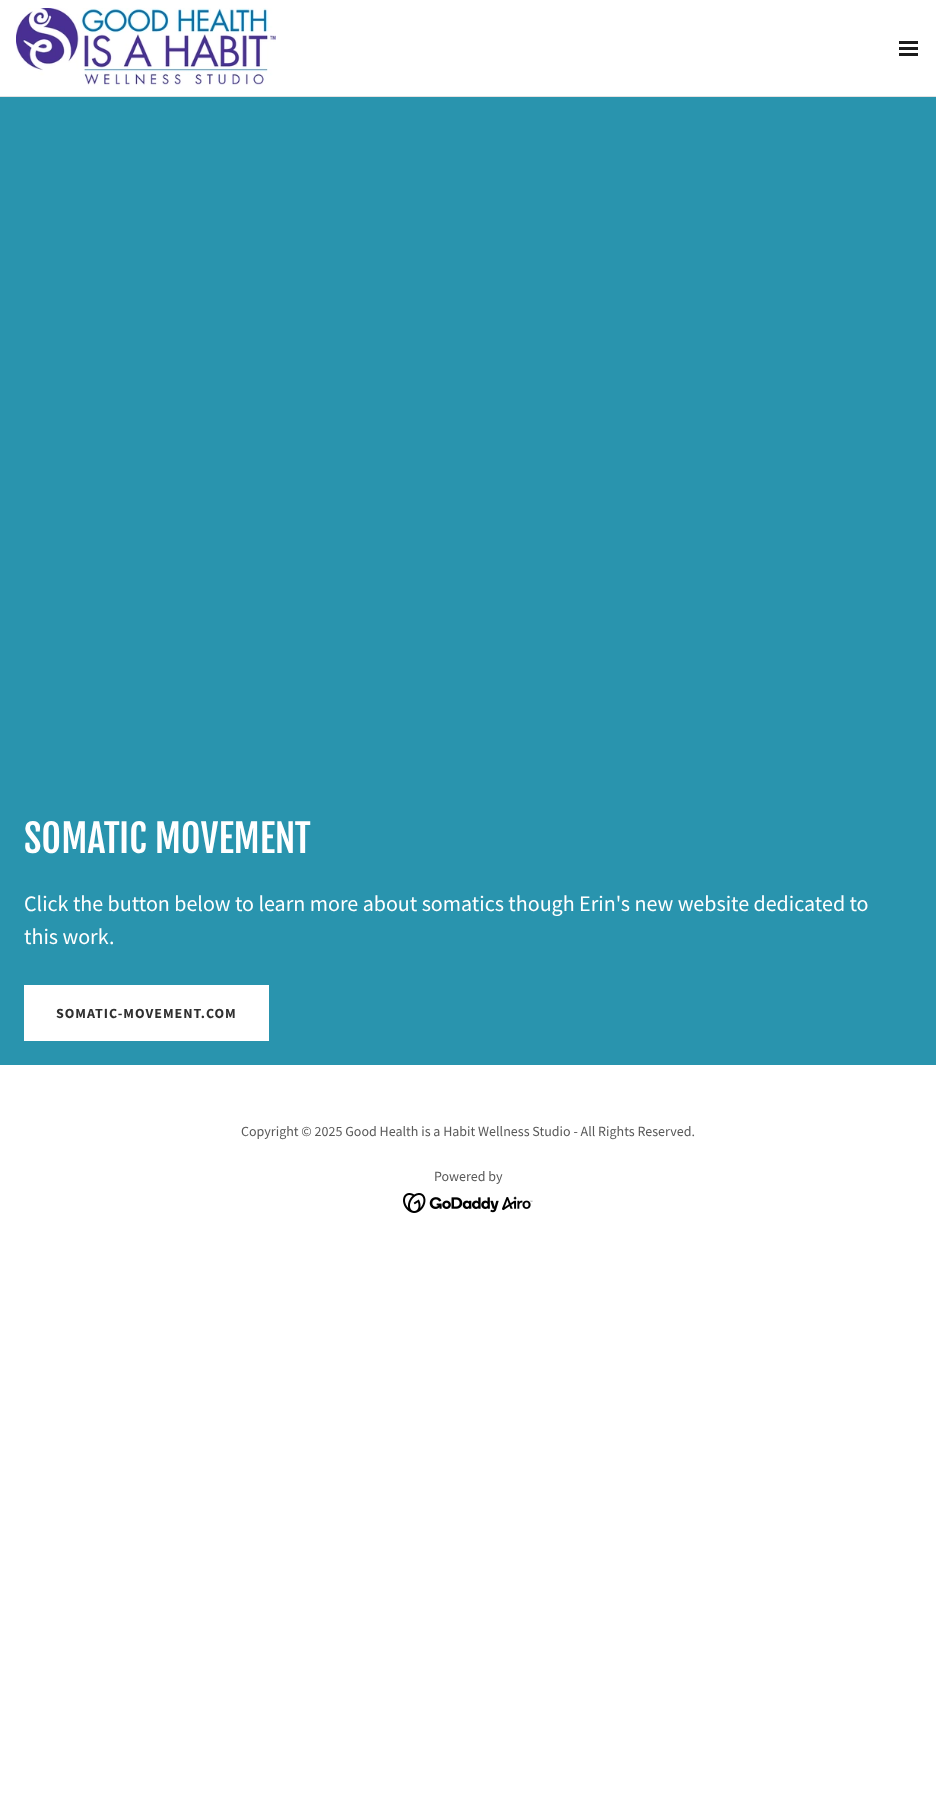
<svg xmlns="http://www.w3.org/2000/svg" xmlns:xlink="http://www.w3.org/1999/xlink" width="936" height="1795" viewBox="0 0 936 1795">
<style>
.cls-1{font:38px Fjalla One;fill:#ffffff}
.cls-2{font:22px Source Sans Pro;fill:#ffffff}
.cls-3{font:bold 14px Source Sans Pro;letter-spacing:1px;fill:#303030}
.cls-4{font:14px Source Sans Pro;fill:#595959}
</style>
<rect width="100%" height="100%" fill="#ffffff"/>
<image xlink:href="image0.png" x="16" y="8" width="260" height="78"/>
<rect fill="#1b1b1b" x="899" y="41" width="19" height="3"/>
<rect fill="#1b1b1b" x="899" y="47" width="19" height="3"/>
<rect fill="#1b1b1b" x="899" y="53" width="19" height="3"/>
<rect fill="#e2e2e2" x="0" y="96" width="936" height="1"/>
<rect fill="#2994ae" x="0" y="97" width="936" height="968"/>
<rect fill="#ffffff" x="24" y="985" width="245" height="56"/>
<image xlink:href="image1.png" x="403" y="1193" width="130" height="20"/>
<text class="cls-1" x="24" y="853">SOMATIC MOVEMENT</text>
<text class="cls-2"><tspan x="24" y="911">Click the button below to learn more about somatics though Erin's new website dedicated to</tspan><tspan x="24" y="944">this work.</tspan></text>
<text class="cls-3" x="56" y="1018">SOMATIC-MOVEMENT.COM</text>
<text class="cls-4" x="241" y="1136">Copyright © 2025 Good Health is a Habit Wellness Studio - All Rights Reserved.</text>
<text class="cls-4" x="434" y="1181">Powered by</text>
</svg>
